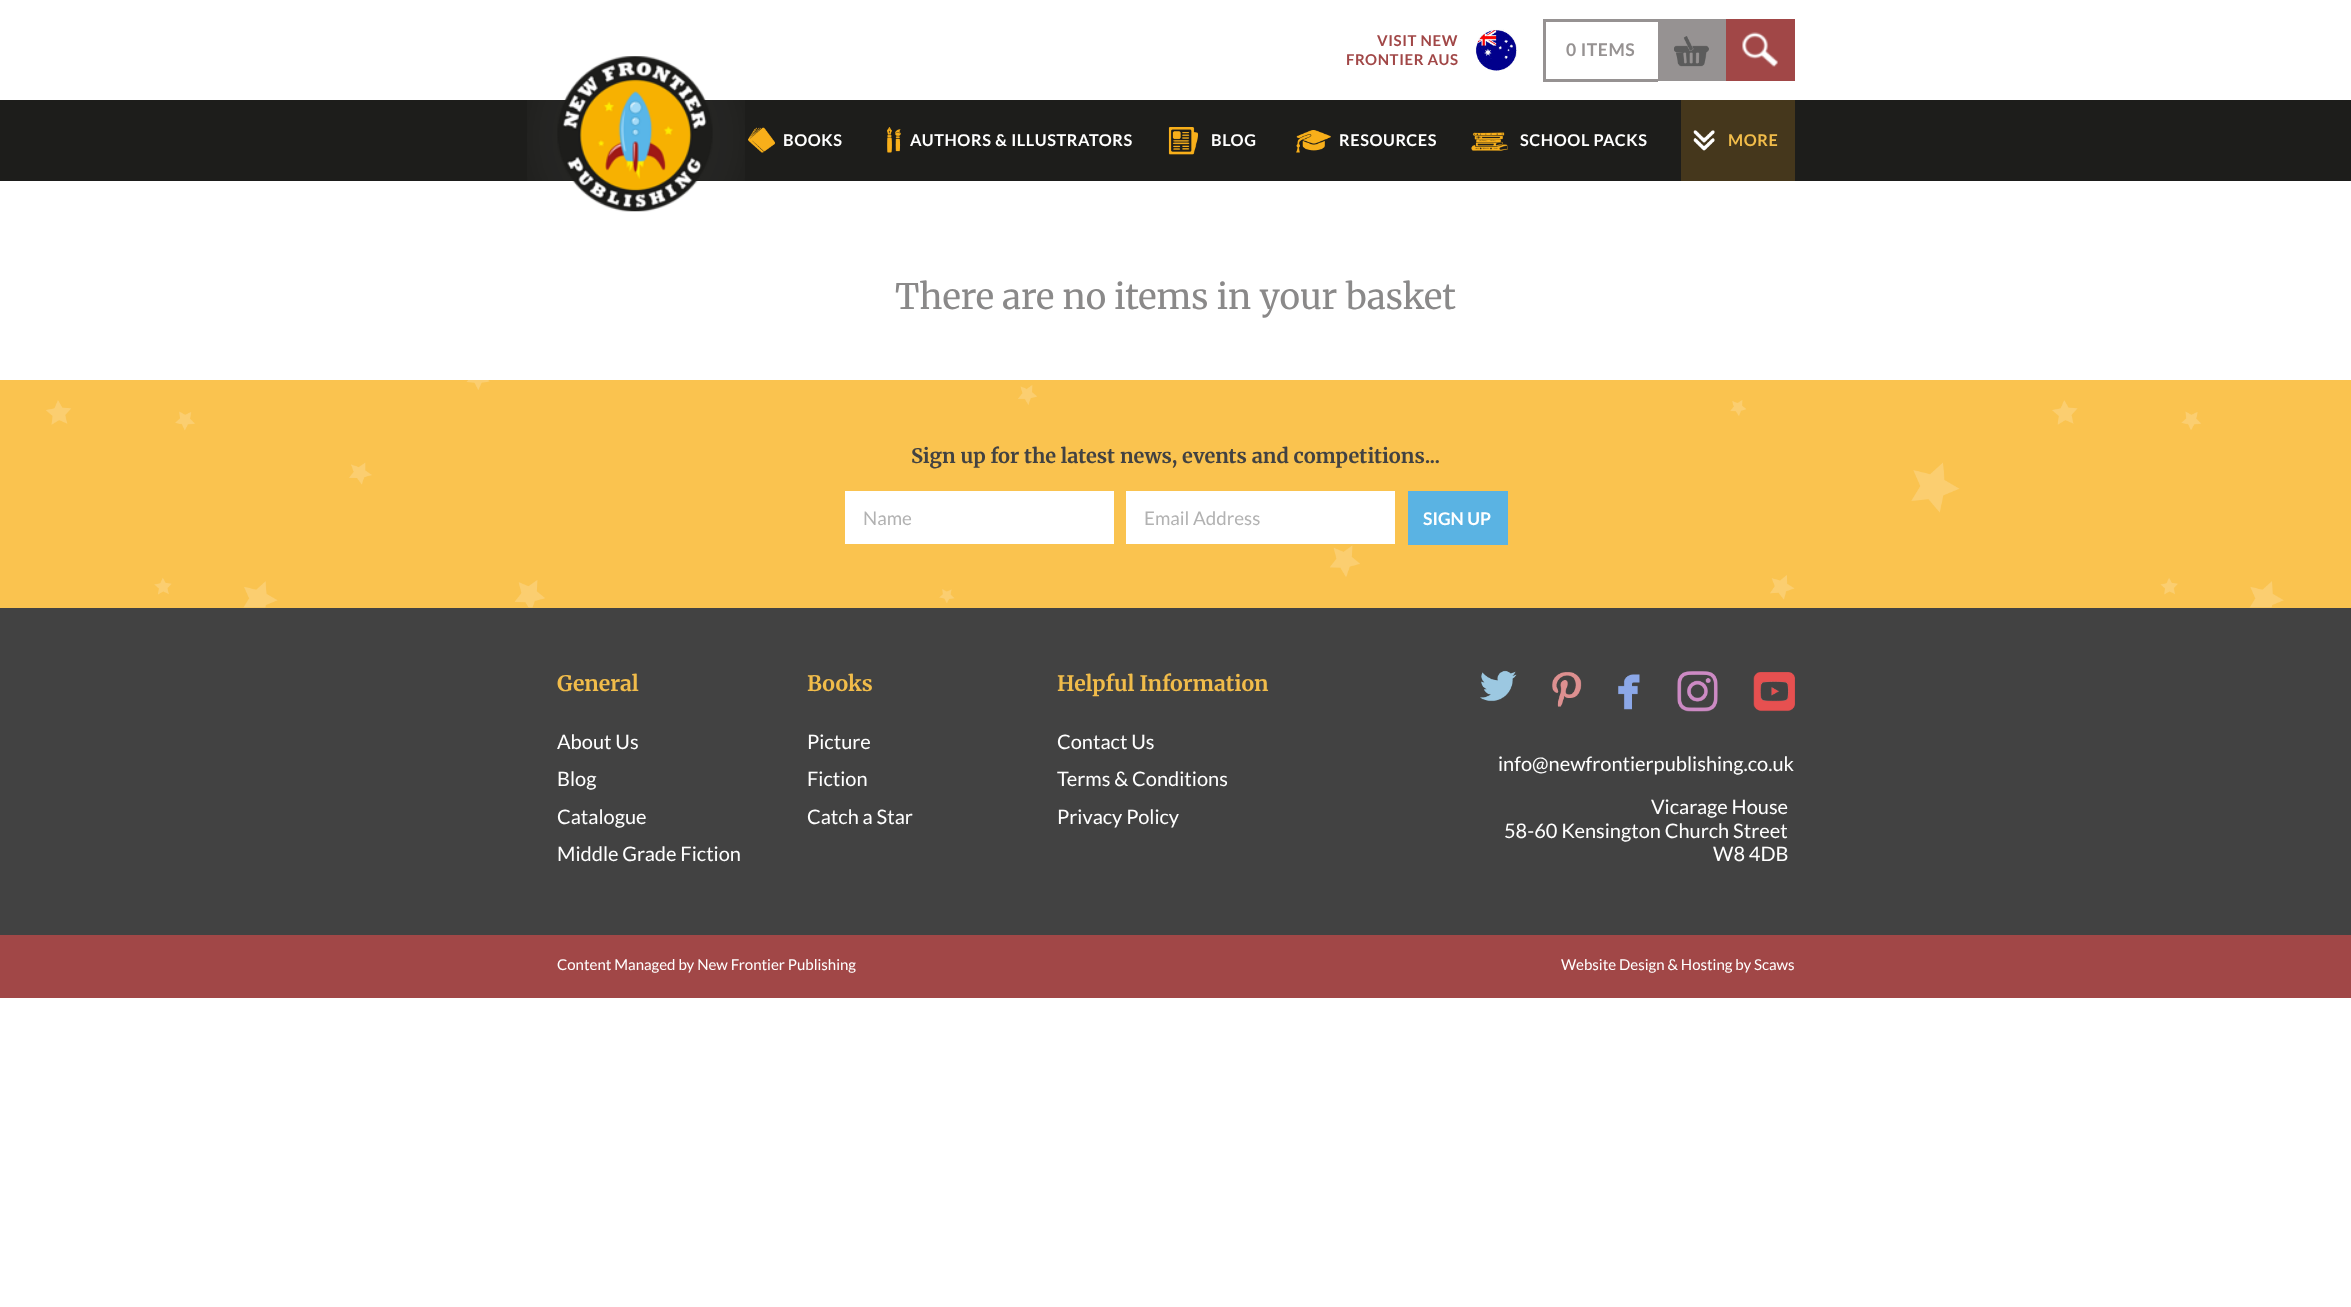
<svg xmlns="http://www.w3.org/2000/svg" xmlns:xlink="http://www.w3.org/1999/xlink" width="2351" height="1307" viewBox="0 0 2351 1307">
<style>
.cls-1{font:bold 15px Lato;letter-spacing:0.6px;fill:#a14747}
.cls-2{font:bold 17.5px Lato;letter-spacing:0.6px;fill:#969292}
.cls-3{font:bold 16.25px Lato;letter-spacing:0.6px;fill:#ffffff}
.cls-4{font:bold 16.25px Lato;letter-spacing:0.6px;fill:#f1bc4a}
.cls-5{font:35px Merriweather;fill:#8a8989}
.cls-6{font:bold 20px Merriweather;fill:#424242}
.cls-7{font:18.75px Lato;fill:#b2b2b2}
.cls-8{font:bold 17.5px Lato;fill:#ffffff}
.cls-9{font:bold 21.25px Merriweather;fill:#f1bc4a}
.cls-10{font:20px Lato;fill:#ffffff}
.cls-11{font:15px Lato;fill:#ffffff}
</style>
<rect width="100%" height="100%" fill="#ffffff"/>
<image xlink:href="image0.png" x="1475" y="29" width="42" height="42"/>
<rect fill="#969292" x="1543" y="19" width="115" height="3"/>
<rect fill="#969292" x="1543" y="79" width="115" height="3"/>
<rect fill="#969292" x="1543" y="19" width="3" height="62"/>
<rect fill="#969292" x="1658" y="19" width="68" height="62"/>
<image xlink:href="image1.png" x="1674" y="36" width="35" height="31"/>
<rect fill="#a14747" x="1726" y="19" width="69" height="62"/>
<image xlink:href="image2.png" x="1742" y="32" width="36" height="35"/>
<rect fill="#1d1d1b" x="0" y="100" width="2351" height="81"/>
<image xlink:href="image4.png" x="527" y="100" width="218" height="81"/>
<image xlink:href="image3.png" x="557" y="56" width="156" height="156"/>
<image xlink:href="image5.png" x="748" y="127" width="27" height="26"/>
<image xlink:href="image6.png" x="887" y="127" width="14" height="26"/>
<image xlink:href="image7.png" x="1168" y="127" width="30" height="28"/>
<image xlink:href="image8.png" x="1296" y="130" width="35" height="23"/>
<image xlink:href="image9.png" x="1471" y="132" width="37" height="19"/>
<rect fill="#45371c" x="1681" y="100" width="114" height="81"/>
<image xlink:href="image10.png" x="1693" y="130" width="22" height="21"/>
<rect fill="#fac34f" x="0" y="380" width="2351" height="228"/>
<image xlink:href="image11.png" x="46" y="380" width="2238" height="228"/>
<rect fill="#ffffff" x="845" y="491" width="269" height="53"/>
<rect fill="#ffffff" x="1126" y="491" width="269" height="53"/>
<rect fill="#5ab3e3" x="1408" y="491" width="100" height="54"/>
<rect fill="#424242" x="0" y="608" width="2351" height="327"/>
<image xlink:href="image12.png" x="1480" y="670" width="37" height="32"/>
<image xlink:href="image13.png" x="1552" y="672" width="30" height="35"/>
<image xlink:href="image14.png" x="1618" y="674" width="22" height="36"/>
<image xlink:href="image15.png" x="1677" y="671" width="41" height="41"/>
<image xlink:href="image16.png" x="1753" y="672" width="42" height="40"/>
<rect fill="#a14747" x="0" y="935" width="2351" height="63"/>
<text class="cls-1" x="1377" y="46">VISIT NEW</text>
<text class="cls-1" x="1346" y="65">FRONTIER AUS</text>
<text class="cls-2" x="1566" y="56">0 ITEMS</text>
<text class="cls-3" x="783" y="146">BOOKS</text>
<text class="cls-3" x="910" y="146">AUTHORS &amp; ILLUSTRATORS</text>
<text class="cls-3" x="1211" y="146">BLOG</text>
<text class="cls-3" x="1339" y="146">RESOURCES</text>
<text class="cls-3" x="1520" y="146">SCHOOL PACKS</text>
<text class="cls-4" x="1728" y="146">MORE</text>
<text class="cls-5" x="895" y="309">There are no items in your basket</text>
<text class="cls-6" x="911" y="463">Sign up for the latest news, events and competitions...</text>
<text class="cls-7" x="863" y="525">Name</text>
<text class="cls-7" x="1144" y="525">Email Address</text>
<text class="cls-8" x="1423" y="525">SIGN UP</text>
<text class="cls-9" x="557" y="691">General</text>
<text class="cls-10"><tspan x="557" y="749">About Us</tspan><tspan x="557" y="786">Blog</tspan><tspan x="557" y="824">Catalogue</tspan><tspan x="557" y="861">Middle Grade Fiction</tspan></text>
<text class="cls-9" x="807" y="691">Books</text>
<text class="cls-10"><tspan x="807" y="749">Picture</tspan><tspan x="807" y="786">Fiction</tspan><tspan x="807" y="824">Catch a Star</tspan></text>
<text class="cls-9" x="1057" y="691">Helpful Information</text>
<text class="cls-10"><tspan x="1057" y="749">Contact Us</tspan><tspan x="1057" y="786">Terms &amp; Conditions</tspan><tspan x="1057" y="824">Privacy Policy</tspan></text>
<text class="cls-10" x="1498" y="771">info@newfrontierpublishing.co.uk</text>
<text class="cls-10" x="1651" y="814">Vicarage House</text>
<text class="cls-10" x="1504" y="838">58-60 Kensington Church Street</text>
<text class="cls-10" x="1713" y="861">W8 4DB</text>
<text class="cls-11" x="557" y="970">Content Managed by New Frontier Publishing</text>
<text class="cls-11" x="1561" y="970">Website Design &amp; Hosting by Scaws</text>
</svg>
